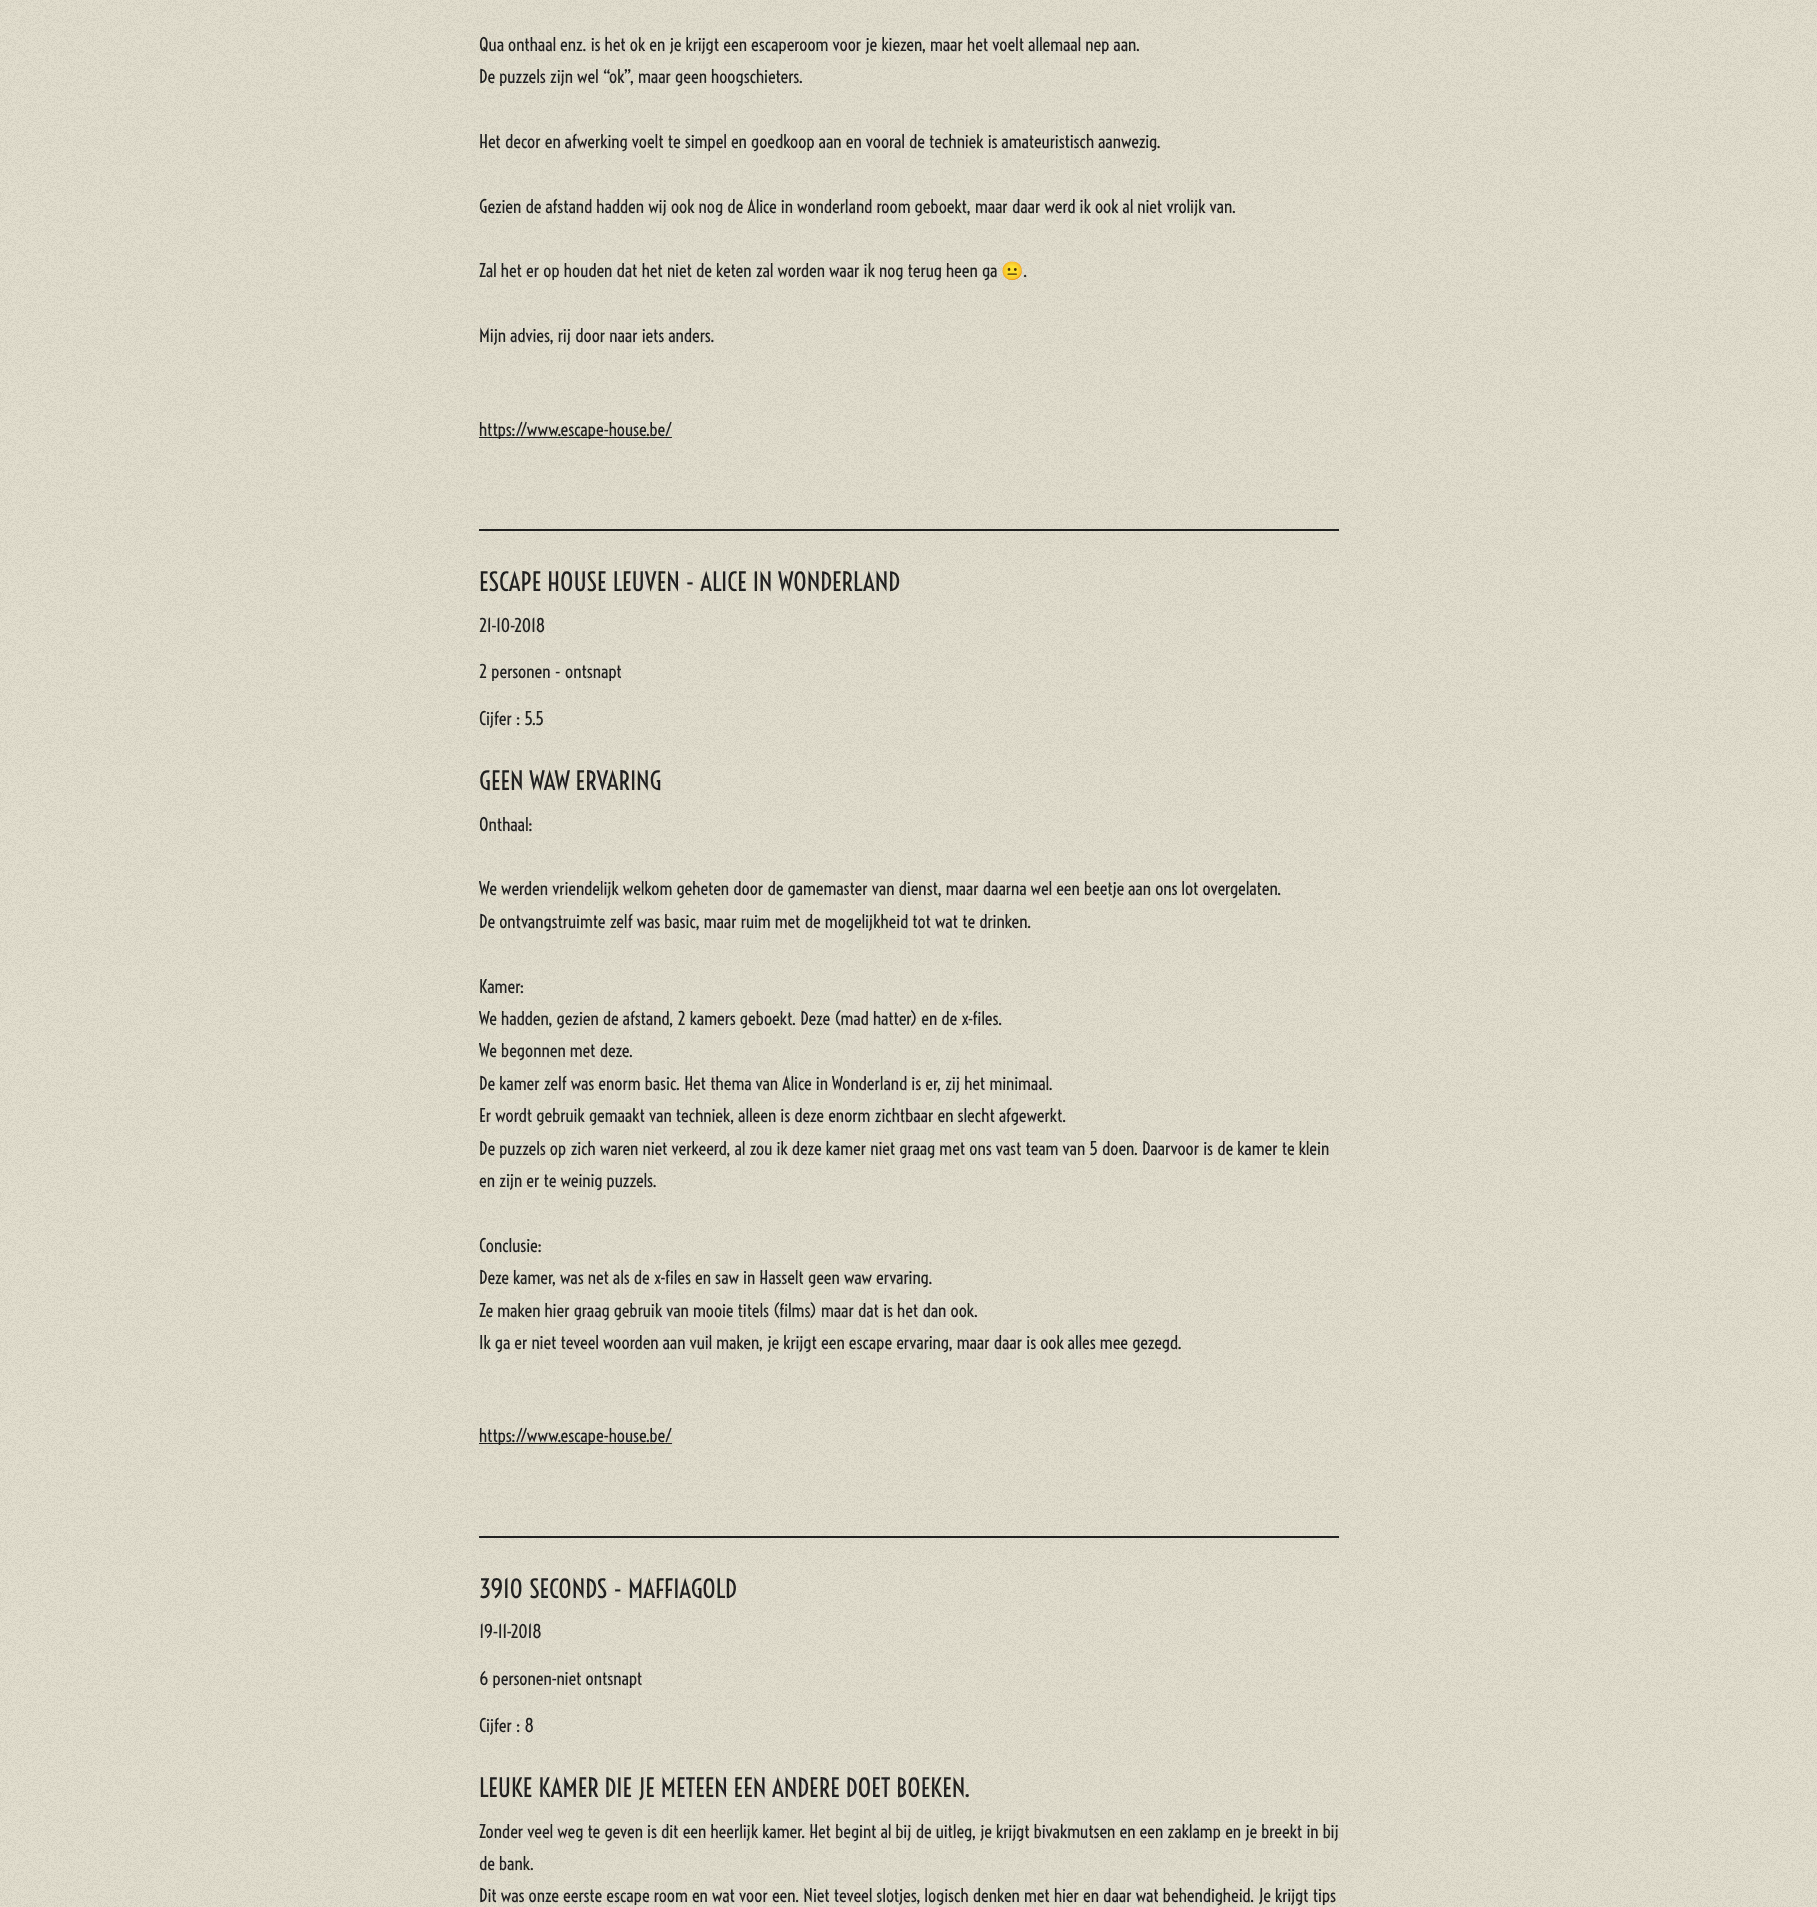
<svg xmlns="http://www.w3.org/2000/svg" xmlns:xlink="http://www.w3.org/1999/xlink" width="1817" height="1907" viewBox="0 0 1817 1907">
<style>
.cls-1{font:18px Voltaire;fill:#202020}
.cls-2{font:18px Noto Color Emoji;fill:#202020}
.cls-3{font:25.25px Voltaire;fill:#202020}
</style>
<rect width="100%" height="100%" fill="#e1ddcd"/>
<image xlink:href="image0.png" x="0" y="0" width="1817" height="1907"/>
<rect fill="#202020" x="479" y="437" width="193" height="1"/>
<rect fill="#202020" x="479" y="529" width="860" height="2"/>
<rect fill="#202020" x="479" y="1443" width="193" height="1"/>
<rect fill="#202020" x="479" y="1536" width="860" height="2"/>
<text class="cls-1"><tspan x="479" y="51">Qua onthaal enz. is het ok en je krijgt een escaperoom voor je kiezen, maar het voelt allemaal nep aan.</tspan><tspan x="479" y="83">De puzzels zijn wel “ok”, maar geen hoogschieters.</tspan></text>
<text class="cls-1" x="479" y="148">Het decor en afwerking voelt te simpel en goedkoop aan en vooral de techniek is amateuristisch aanwezig.</text>
<text class="cls-1" x="479" y="213">Gezien de afstand hadden wij ook nog de Alice in wonderland room geboekt, maar daar werd ik ook al niet vrolijk van.</text>
<text class="cls-1" x="479" y="277">Zal het er op houden dat het niet de keten zal worden waar ik nog terug heen ga</text>
<text class="cls-2" x="1001" y="277">😐</text>
<text class="cls-1" x="1023" y="277">.</text>
<text class="cls-1" x="479" y="342">Mijn advies, rij door naar iets anders.</text>
<text class="cls-1" x="479" y="436">https://www.escape-house.be/</text>
<text class="cls-3" x="479" y="591">ESCAPE HOUSE LEUVEN - ALICE IN WONDERLAND</text>
<text class="cls-1" x="479" y="632">21-10-2018</text>
<text class="cls-1" x="479" y="678">2 personen - ontsnapt</text>
<text class="cls-1" x="479" y="725">Cijfer : 5.5</text>
<text class="cls-3" x="479" y="790">GEEN WAW ERVARING</text>
<text class="cls-1" x="479" y="831">Onthaal:</text>
<text class="cls-1"><tspan x="479" y="895">We werden vriendelijk welkom geheten door de gamemaster van dienst, maar daarna wel een beetje aan ons lot overgelaten.</tspan><tspan x="479" y="928">De ontvangstruimte zelf was basic, maar ruim met de mogelijkheid tot wat te drinken.</tspan></text>
<text class="cls-1"><tspan x="479" y="993">Kamer:</tspan><tspan x="479" y="1025">We hadden, gezien de afstand, 2 kamers geboekt. Deze (mad hatter) en de x-files.</tspan><tspan x="479" y="1057">We begonnen met deze.</tspan><tspan x="479" y="1090">De kamer zelf was enorm basic. Het thema van Alice in Wonderland is er, zij het minimaal.</tspan><tspan x="479" y="1122">Er wordt gebruik gemaakt van techniek, alleen is deze enorm zichtbaar en slecht afgewerkt.</tspan><tspan x="479" y="1155">De puzzels op zich waren niet verkeerd, al zou ik deze kamer niet graag met ons vast team van 5 doen. Daarvoor is de kamer te klein</tspan><tspan x="479" y="1187">en zijn er te weinig puzzels.</tspan></text>
<text class="cls-1"><tspan x="479" y="1252">Conclusie:</tspan><tspan x="479" y="1284">Deze kamer, was net als de x-files en saw in Hasselt geen waw ervaring.</tspan><tspan x="479" y="1317">Ze maken hier graag gebruik van mooie titels (films) maar dat is het dan ook.</tspan><tspan x="479" y="1349">Ik ga er niet teveel woorden aan vuil maken, je krijgt een escape ervaring, maar daar is ook alles mee gezegd.</tspan></text>
<text class="cls-1" x="479" y="1442">https://www.escape-house.be/</text>
<text class="cls-3" x="479" y="1598">3910 SECONDS - MAFFIAGOLD</text>
<text class="cls-1" x="479" y="1638">19-11-2018</text>
<text class="cls-1" x="479" y="1685">6 personen-niet ontsnapt</text>
<text class="cls-1" x="479" y="1732">Cijfer : 8</text>
<text class="cls-3" x="479" y="1797">LEUKE KAMER DIE JE METEEN EEN ANDERE DOET BOEKEN.</text>
<text class="cls-1"><tspan x="479" y="1838">Zonder veel weg te geven is dit een heerlijk kamer. Het begint al bij de uitleg, je krijgt bivakmutsen en een zaklamp en je breekt in bij</tspan><tspan x="479" y="1870">de bank.</tspan><tspan x="479" y="1902">Dit was onze eerste escape room en wat voor een. Niet teveel slotjes, logisch denken met hier en daar wat behendigheid. Je krijgt tips</tspan></text>
</svg>
